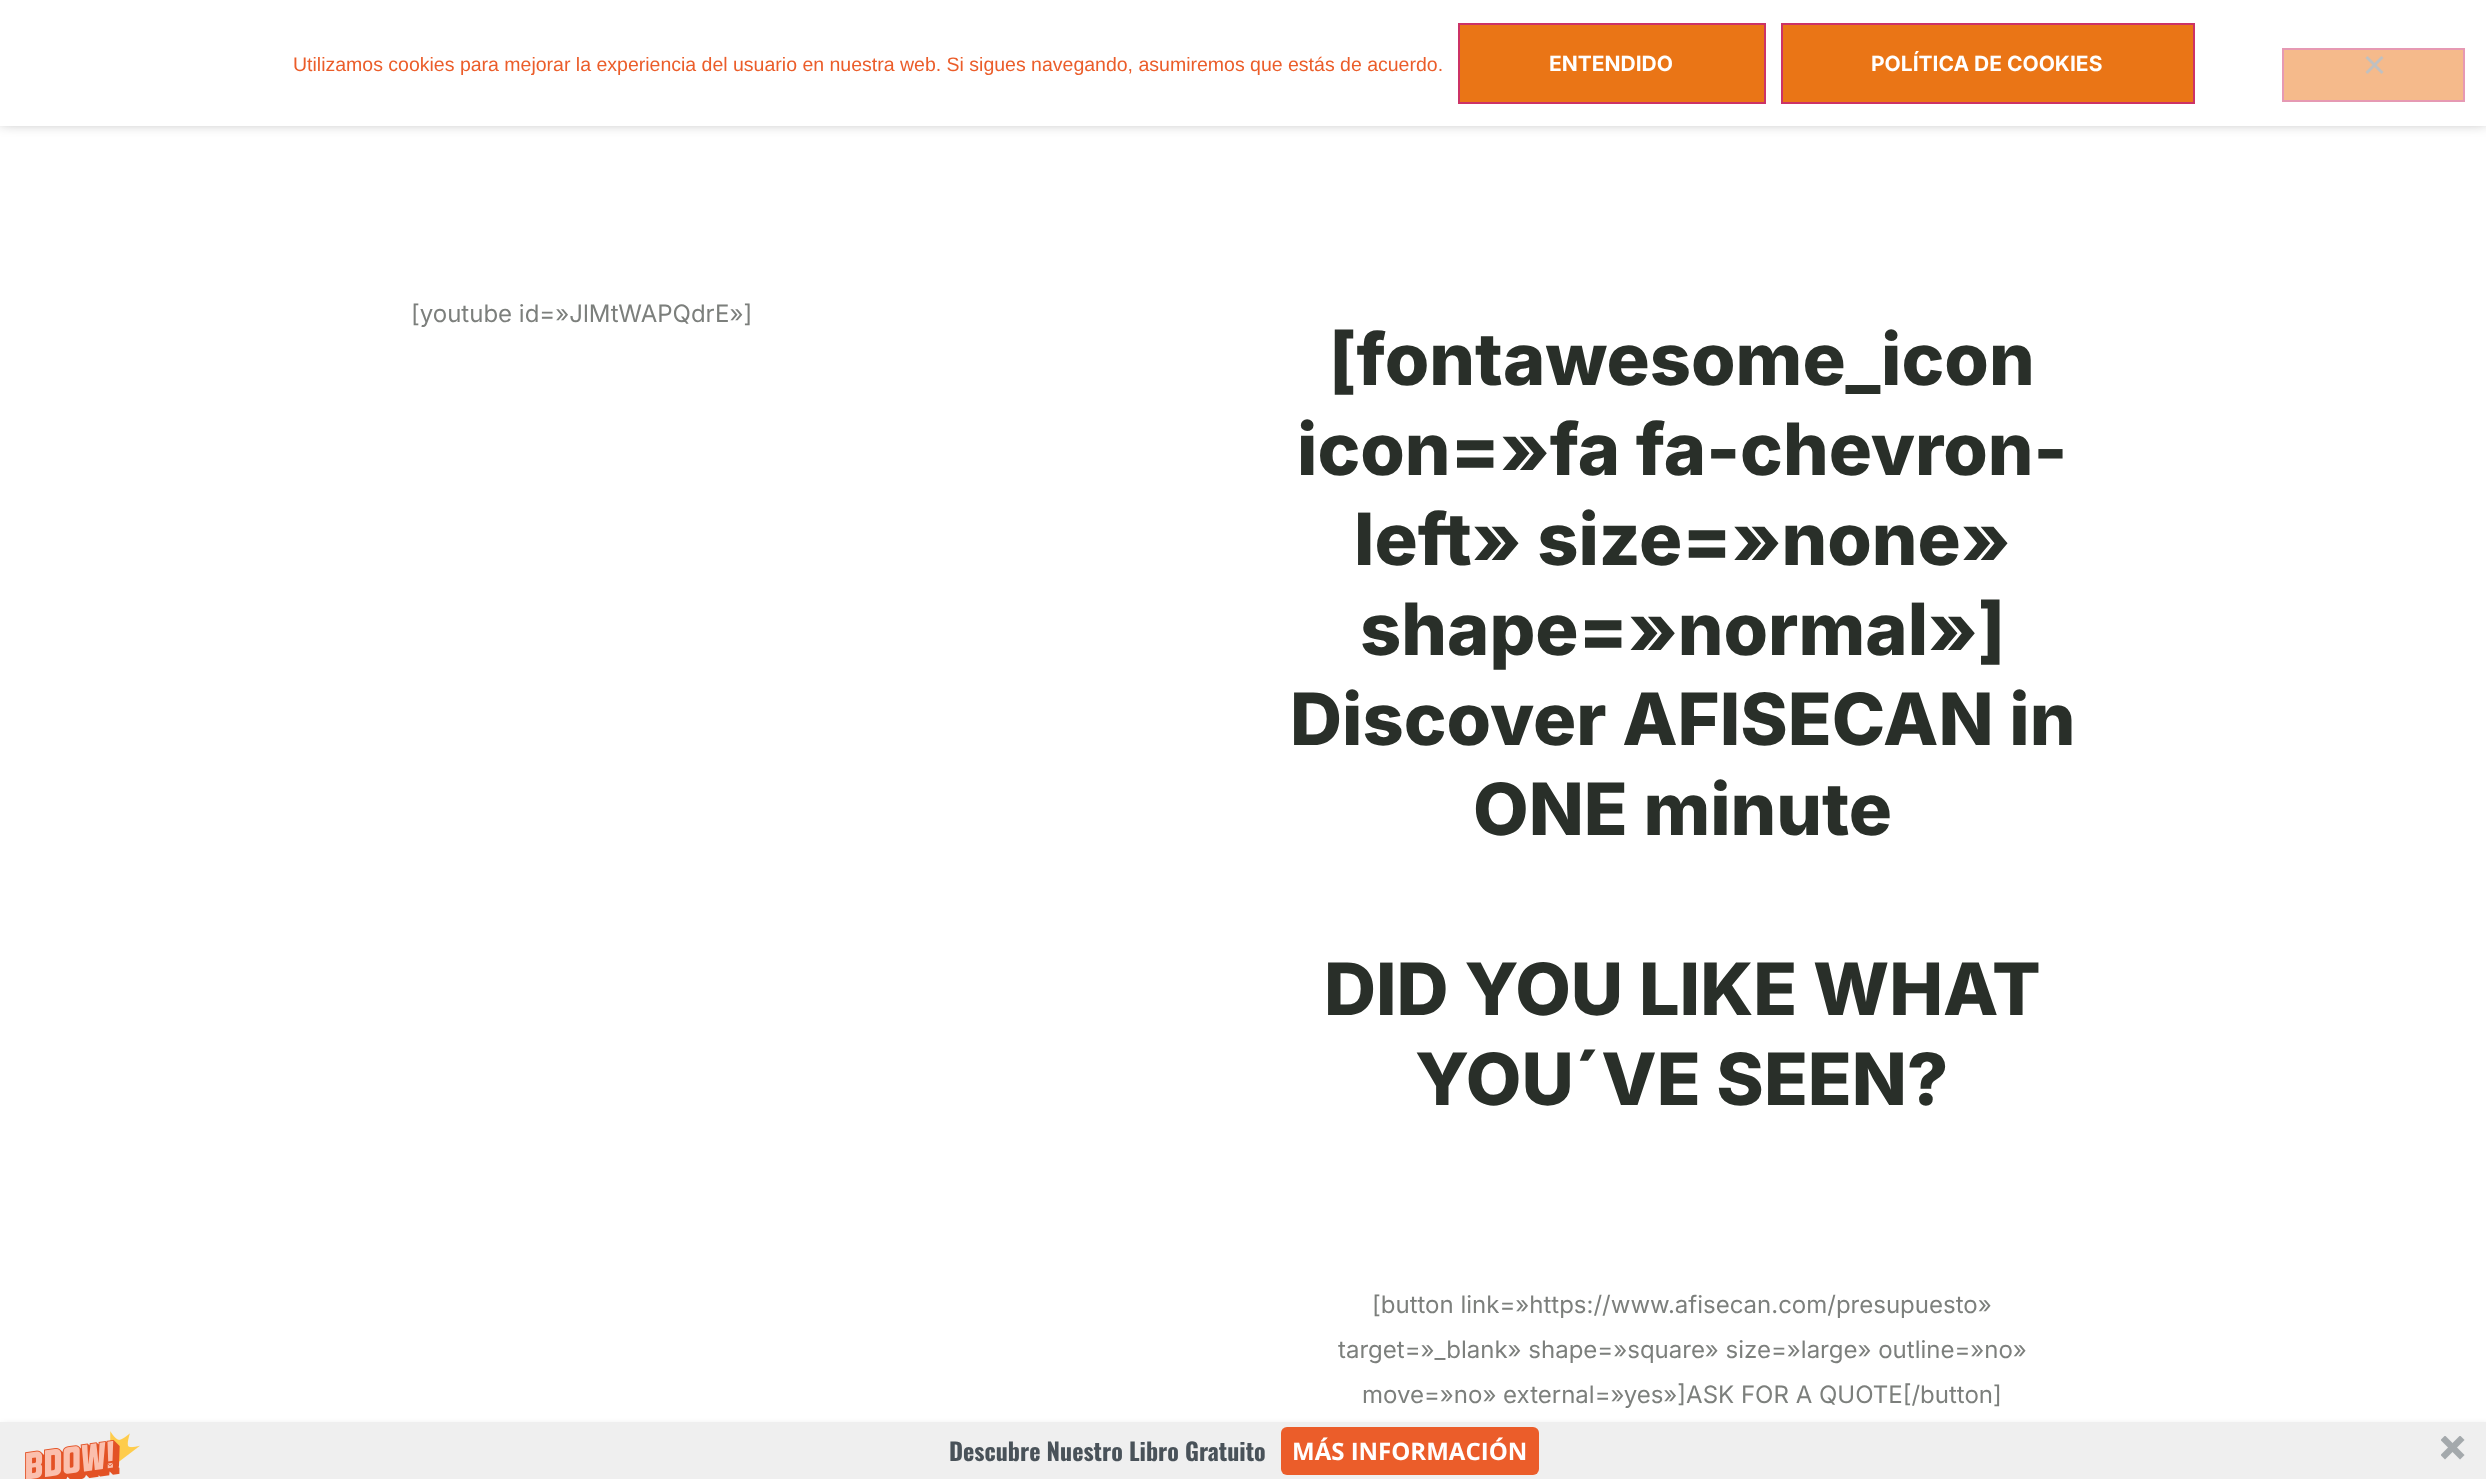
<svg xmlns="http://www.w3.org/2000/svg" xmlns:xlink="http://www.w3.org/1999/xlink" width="2486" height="1479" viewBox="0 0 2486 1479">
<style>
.cls-1{font:19.5px Liberation Sans;fill:#eb5d2a}
.cls-2{font:bold 21px Inter;fill:#ffffff}
.cls-3{font:24px Inter;fill:#7c7f7c}
.cls-4{font:800 72px Inter;fill:#292f29}
.cls-5{font:bold 24px Oswald;fill:#495259}
.cls-6{font:bold 24px Open Sans;fill:#ffffff}
</style>
<rect width="100%" height="100%" fill="#ffffff"/>
<rect fill="#000000" fill-opacity="0.5" filter="blur(7.5px)" x="0" y="0" width="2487" height="120"/>
<rect fill="#ffffff" x="0" y="0" width="2486" height="126"/>
<rect fill="#ea7516" stroke="#cc3366" stroke-width="2" x="1459" y="24" width="306" height="79"/>
<rect fill="#ea7516" stroke="#cc3366" stroke-width="2" x="1782" y="24" width="412" height="79"/>
<rect fill="#f5ba8b" stroke="#e699b3" stroke-width="2" x="2283" y="49" width="181" height="52"/>
<path fill="#c0c0c0" d="M2381.5 56L2383.5 58L2367.5 74L2365.5 72Z"/>
<path fill="#c0c0c0" d="M2365.5 58L2367.5 56L2383.5 72L2381.5 74Z"/>
<rect fill="#000000" fill-opacity="0.25" filter="blur(4px)" x="2" y="1427" width="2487" height="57"/>
<rect fill="#efefef" x="0" y="1422" width="2486" height="57"/>
<image xlink:href="image0.png" x="25" y="1431" width="115" height="48"/>
<rect fill="#eb5d2a" x="1281" y="1427" width="258" height="48" rx="6"/>
<image xlink:href="image1.png" x="2441" y="1436" width="24" height="24"/>
<text class="cls-1" x="293" y="71">Utilizamos cookies para mejorar la experiencia del usuario en nuestra web. Si sigues navegando, asumiremos que estás de acuerdo.</text>
<text class="cls-2" x="1549" y="71">ENTENDIDO</text>
<text class="cls-2" x="1871" y="71">POLÍTICA DE COOKIES</text>
<text class="cls-3" x="411" y="322">[youtube id=»JlMtWAPQdrE»]</text>
<text class="cls-4" x="1329" y="385">[fontawesome_icon</text>
<text class="cls-4" x="1297" y="475">icon=»fa fa-chevron-</text>
<text class="cls-4" x="1354" y="565">left» size=»none»</text>
<text class="cls-4" x="1360" y="655">shape=»normal»]</text>
<text class="cls-4" x="1290" y="745">Discover AFISECAN in</text>
<text class="cls-4" x="1473" y="835">ONE minute</text>
<text class="cls-4" x="1324" y="1015">DID YOU LIKE WHAT</text>
<text class="cls-4" x="1415" y="1105">YOU´VE SEEN?</text>
<text class="cls-3" x="1372" y="1313">[button link=»https://www.afisecan.com/presupuesto»</text>
<text class="cls-3" x="1338" y="1358">target=»_blank» shape=»square» size=»large» outline=»no»</text>
<text class="cls-3" x="1362" y="1403">move=»no» external=»yes»]ASK FOR A QUOTE[/button]</text>
<text class="cls-5" x="949" y="1461">Descubre Nuestro Libro Gratuito</text>
<text class="cls-6" x="1292" y="1460">MÁS INFORMACIÓN</text>
</svg>
